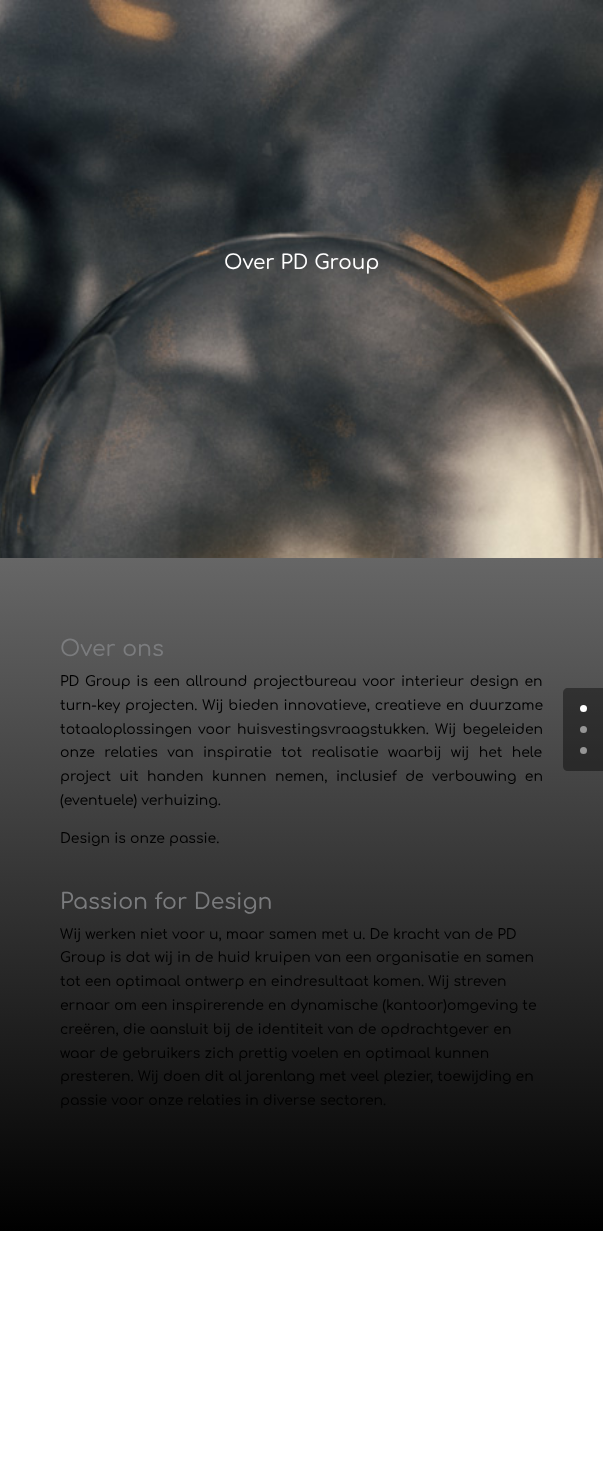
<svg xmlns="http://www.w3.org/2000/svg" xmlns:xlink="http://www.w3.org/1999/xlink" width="603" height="1476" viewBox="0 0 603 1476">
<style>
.cls-1{font:500 20px Comfortaa;fill:#ffffff}
.cls-2{font:500 22px Comfortaa;fill:#7b7c7e}
.cls-3{font:500 14px Comfortaa;fill:#000000}
</style>
<defs>
<linearGradient id="g1" gradientUnits="userSpaceOnUse" x1="301" y1="558" x2="302" y2="1231"><stop offset="0" stop-color="#666666"/><stop offset="1" stop-color="#000000"/></linearGradient>
</defs>
<rect width="100%" height="100%" fill="#ffffff"/>
<image xlink:href="image0.png" x="0" y="0" width="603" height="558"/>
<rect fill="url(#g1)" x="0" y="558" width="603" height="673"/>
<path fill="#000000" fill-opacity="0.4" d="M568 688H603V771H568C565 771 563 769 563 766V693C563 690 565 688 568 688Z"/>
<circle fill="#ffffff" cx="583.5" cy="708.5" r="3.5"/>
<circle fill="#969696" cx="583.5" cy="729.5" r="3.5"/>
<circle fill="#959595" cx="583.5" cy="750.5" r="3.5"/>
<text class="cls-1" x="224" y="269">Over PD Group</text>
<text class="cls-2" x="60" y="656">Over ons</text>
<text class="cls-3"><tspan x="60" y="686" word-spacing="1.5">PD Group is een allround projectbureau voor interieur design en</tspan><tspan x="60" y="710" word-spacing="0.75">turn-key projecten. Wij bieden innovatieve, creatieve en duurzame</tspan><tspan x="60" y="734" word-spacing="2">totaaloplossingen voor huisvestingsvraagstukken. Wij begeleiden</tspan><tspan x="60" y="757" word-spacing="5.25">onze relaties van inspiratie tot realisatie waarbij wij het hele</tspan><tspan x="60" y="781" word-spacing="4.25">project uit handen kunnen nemen, inclusief de verbouwing en</tspan><tspan x="60" y="805">(eventuele) verhuizing.</tspan></text>
<text class="cls-3" x="60" y="843">Design is onze passie.</text>
<text class="cls-2" x="60" y="909">Passion for Design</text>
<text class="cls-3"><tspan x="60" y="939">Wij werken niet voor u, maar samen met u. De kracht van de PD</tspan><tspan x="60" y="962">Group is dat wij in de huid kruipen van een organisatie en samen</tspan><tspan x="60" y="986">tot een optimaal ontwerp en eindresultaat komen. Wij streven</tspan><tspan x="60" y="1010">ernaar om een inspirerende en dynamische (kantoor)omgeving te</tspan><tspan x="60" y="1034">creëren, die aansluit bij de identiteit van de opdrachtgever en</tspan><tspan x="60" y="1058">waar de gebruikers zich prettig voelen en optimaal kunnen</tspan><tspan x="60" y="1081">presteren. Wij doen dit al jarenlang met veel plezier, toewijding en</tspan><tspan x="60" y="1105">passie voor onze relaties in diverse sectoren.</tspan></text>
</svg>
